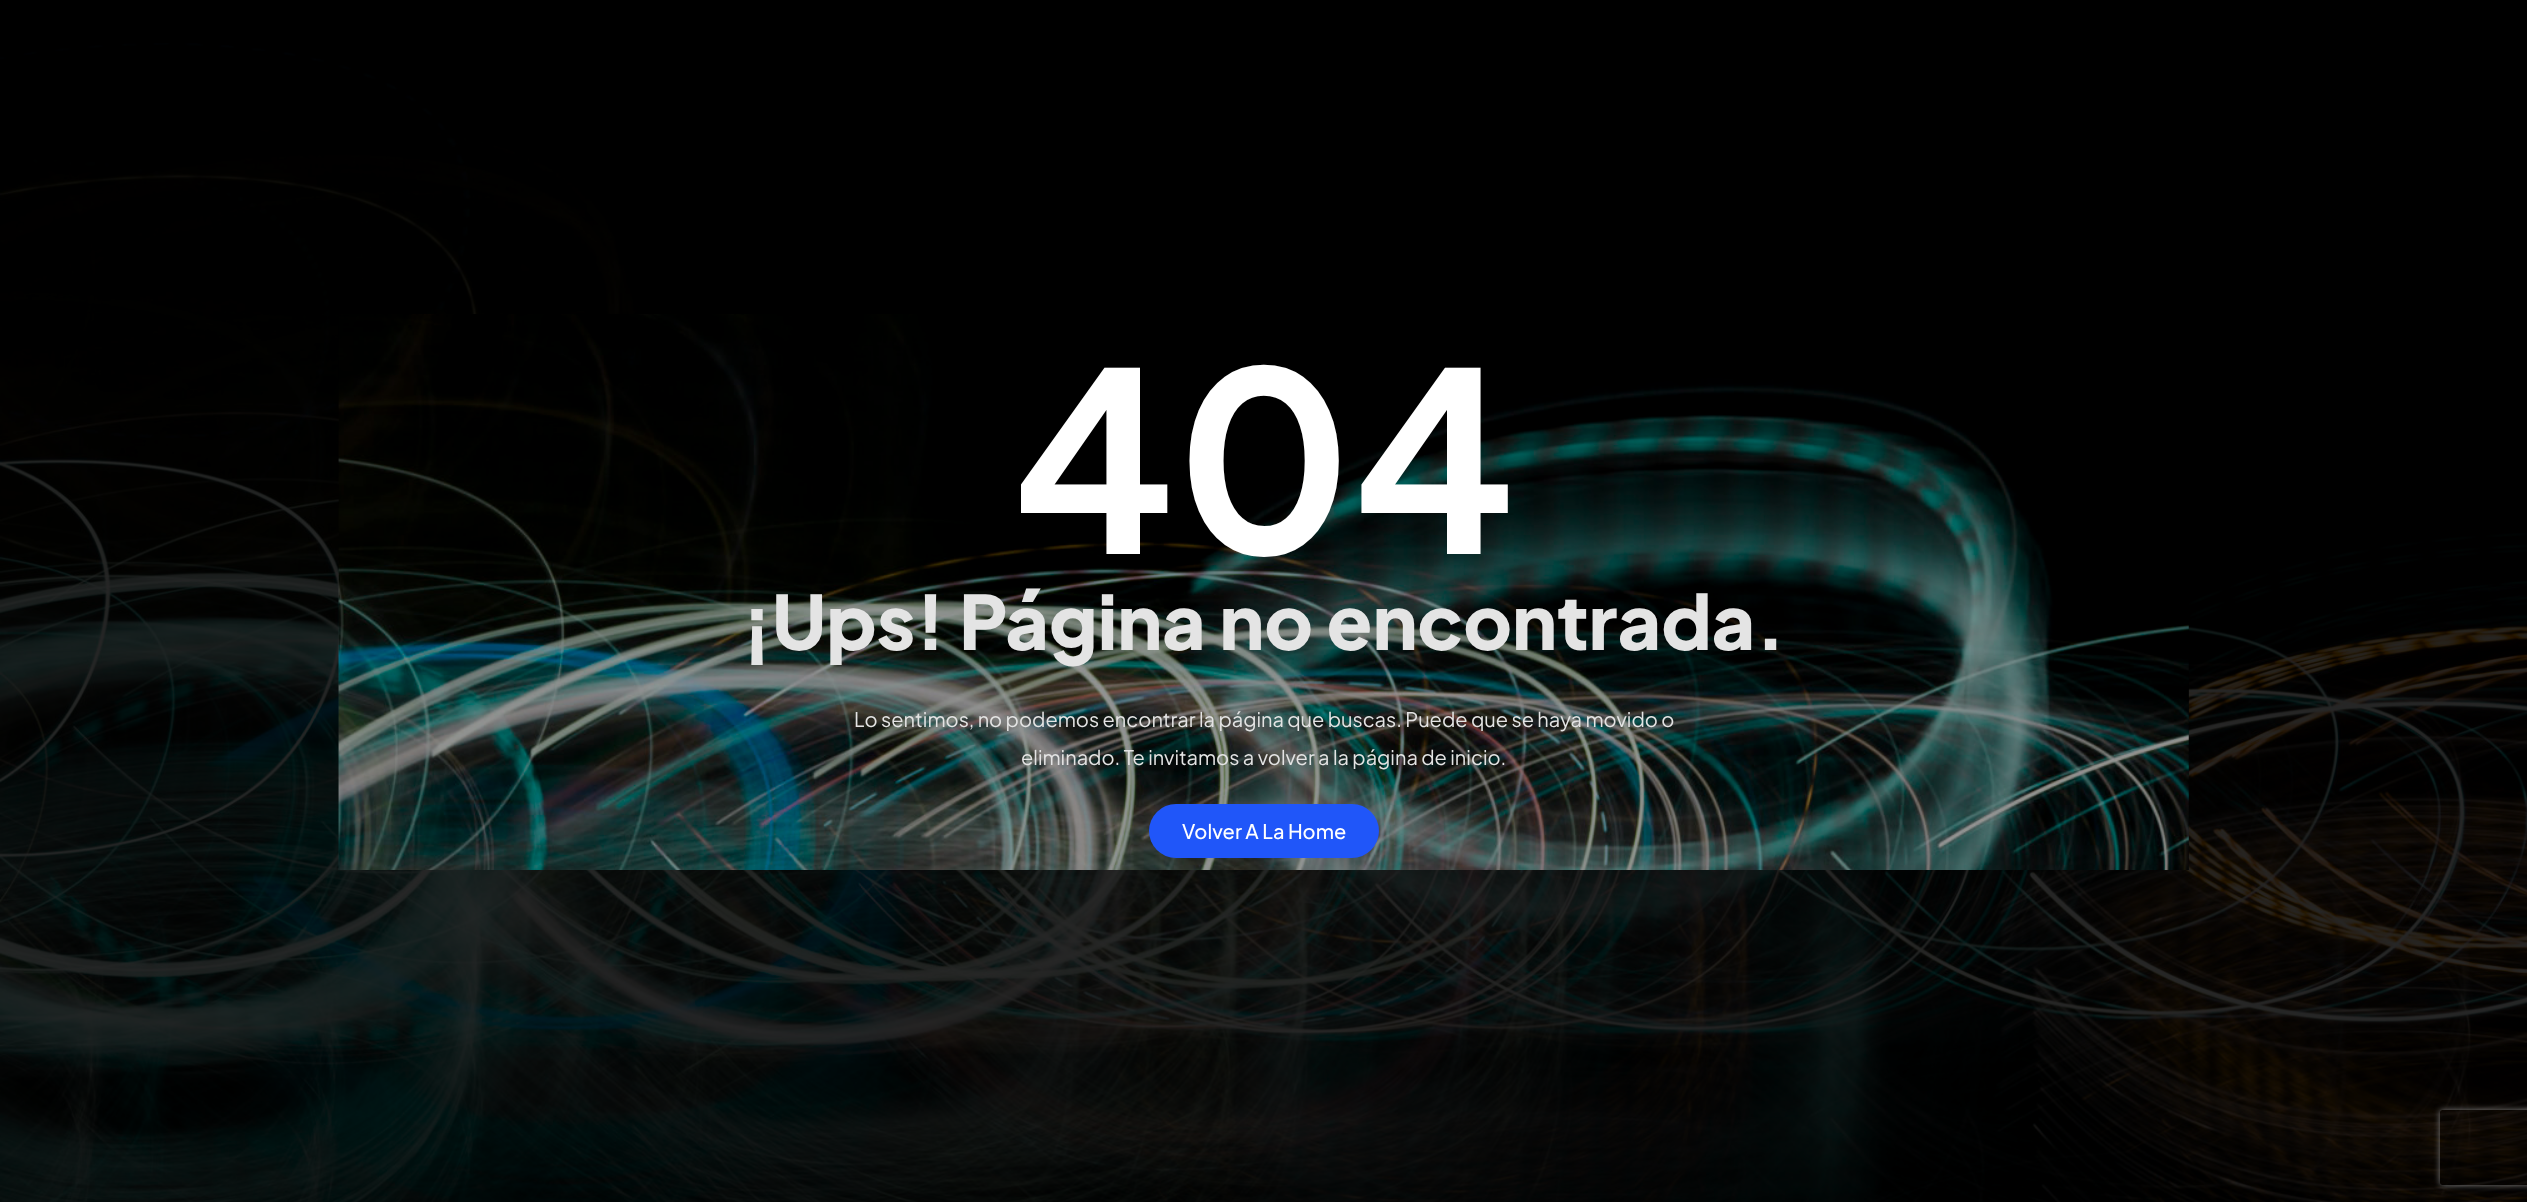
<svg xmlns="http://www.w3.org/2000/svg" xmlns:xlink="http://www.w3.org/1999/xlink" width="2527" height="1202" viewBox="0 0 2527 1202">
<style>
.cls-1{font:bold 250px Plus Jakarta Sans;fill:#ffffff}
.cls-2{font:800 75px Plus Jakarta Sans;fill:#e4e4e4}
.cls-3{font:20px Plus Jakarta Sans;fill:#e4e4e4}
.cls-4{font:500 20px Plus Jakarta Sans;fill:#ffffff}
</style>
<defs>
<clipPath id="clip1"><path d="M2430 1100H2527V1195H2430ZM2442.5 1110H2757.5C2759 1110 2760 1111 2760 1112.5V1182.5C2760 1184 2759 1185 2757.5 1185H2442.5C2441 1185 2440 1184 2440 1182.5V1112.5C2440 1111 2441 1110 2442.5 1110Z" clip-rule="evenodd"/></clipPath>
</defs>
<rect width="100%" height="100%" fill="#000000"/>
<image xlink:href="image0.png" x="0" y="43" width="2527" height="1159"/>
<image xlink:href="image1.png" x="338" y="314" width="1851" height="556"/>
<rect fill="#000000" fill-opacity="0.42" x="339" y="314" width="1850" height="556"/>
<rect fill="#2056f9" x="1149" y="804" width="230" height="54" rx="27"/>
<g clip-path="url(#clip1)">
<rect fill="#808080" filter="blur(3px)" x="2440" y="1110" width="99" height="75" rx="2.5"/>
</g>
<text class="cls-1" x="1012" y="554">404</text>
<text class="cls-2" x="742" y="650">¡Ups! Página no encontrada.</text>
<text class="cls-3" x="854" y="727">Lo sentimos, no podemos encontrar la página que buscas. Puede que se haya movido o</text>
<text class="cls-3" x="1021" y="765">eliminado. Te invitamos a volver a la página de inicio.</text>
<text class="cls-4" x="1182" y="839">Volver A La Home</text>
</svg>
